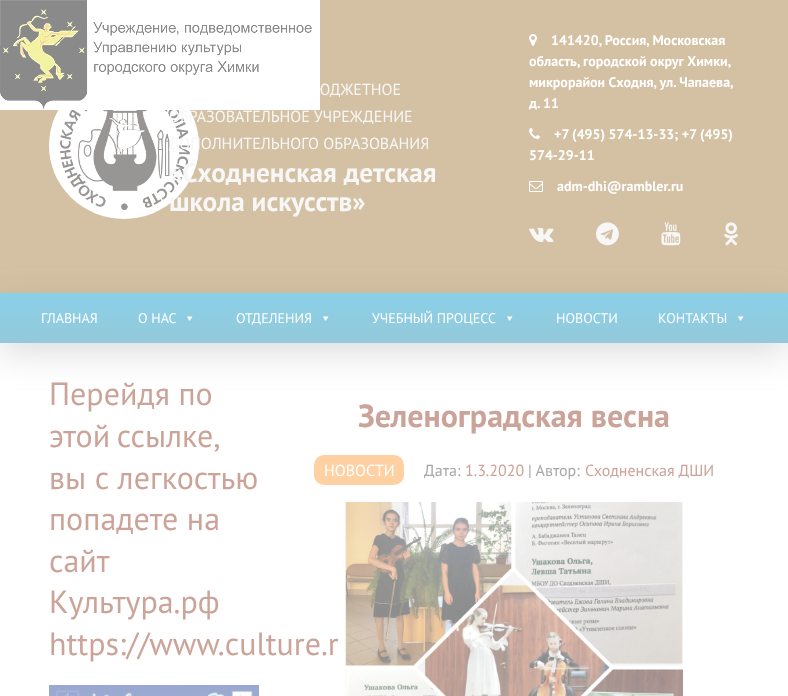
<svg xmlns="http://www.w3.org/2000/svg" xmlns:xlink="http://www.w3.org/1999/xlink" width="788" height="696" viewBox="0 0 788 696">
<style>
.cls-1{font:16px PT Sans;fill:#f7f7f7}
.cls-2{font:bold 27.25px PT Sans;fill:#f7f7f7}
.cls-3{font:bold 14px PT Sans;fill:#ffffff}
.cls-4{font:14px PT Sans;fill:#ffffff}
.cls-5{font:32px PT Sans;fill:#cba399}
.cls-6{font:bold 32px PT Sans;fill:#cba399}
.cls-7{font:16px PT Sans;fill:#ffffff}
.cls-8{font:16px PT Sans;fill:#a7a7a7}
.cls-9{font:16px PT Sans;fill:#cba399}
</style>
<defs>
<linearGradient id="g1" gradientUnits="userSpaceOnUse" x1="394" y1="293" x2="394" y2="343"><stop offset="0" stop-color="#8ad0e8"/><stop offset="1" stop-color="#94c9da"/></linearGradient>
</defs>
<rect width="100%" height="100%" fill="#ffffff"/>
<rect fill="#d4c0a2" x="0" y="0" width="788" height="293"/>
<image xlink:href="image1.png" x="49" y="110" width="150" height="109"/>
<image xlink:href="image2.png" x="529" y="34" width="8" height="12"/>
<image xlink:href="image3.png" x="529" y="128" width="11" height="11"/>
<image xlink:href="image4.png" x="529" y="181" width="14" height="11"/>
<image xlink:href="image5.png" x="529" y="228" width="25" height="14"/>
<image xlink:href="image6.png" x="596" y="222" width="23" height="24"/>
<image xlink:href="image7.png" x="661" y="222" width="20" height="24"/>
<image xlink:href="image8.png" x="724" y="222" width="14" height="24"/>
<rect fill="#8a8a8a" fill-opacity="0.29" filter="blur(17.5px)" x="0" y="303" width="788" height="50"/>
<rect fill="url(#g1)" x="0" y="293" width="788" height="50"/>
<path fill="#ffffff" d="M192.5 316.5L189.5 321L187 316.5Z"/>
<path fill="#ffffff" d="M328.5 316.5L325.5 321L323 316.5Z"/>
<path fill="#ffffff" d="M512.5 316.5L509.5 321L507 316.5Z"/>
<path fill="#ffffff" d="M743.5 316.5L740.5 321L738 316.5Z"/>
<image xlink:href="image9.png" x="49" y="685" width="210" height="11"/>
<rect fill="#ffd0a1" x="314" y="455" width="90" height="30" rx="10"/>
<image xlink:href="image10.png" x="345" y="502" width="338" height="194"/>
<text class="cls-1" x="316" y="95">ЮДЖЕТНОЕ</text>
<image xlink:href="image0.png" x="0" y="0" width="320" height="110"/>
<text class="cls-1"><tspan x="169" y="122">ОБРАЗОВАТЕЛЬНОЕ УЧРЕЖДЕНИЕ</tspan><tspan x="169" y="149">ДОПОЛНИТЕЛЬНОГО ОБРАЗОВАНИЯ</tspan></text>
<text class="cls-2"><tspan x="169" y="182">«Сходненская детская</tspan><tspan x="169" y="211">школа искусств»</tspan></text>
<text class="cls-3" x="551" y="45">141420, Россия, Московская</text>
<text class="cls-3"><tspan x="529" y="66">область, городской округ Химки,</tspan><tspan x="529" y="87">микрорайон Сходня, ул. Чапаева,</tspan><tspan x="529" y="108">д. 11</tspan></text>
<text class="cls-3" x="554" y="139">+7 (495) 574-13-33; +7 (495)</text>
<text class="cls-3" x="529" y="160">574-29-11</text>
<text class="cls-3" x="557" y="191">adm-dhi@rambler.ru</text>
<text class="cls-4" x="41" y="323">ГЛАВНАЯ</text>
<text class="cls-4" x="138" y="323">О НАС</text>
<text class="cls-4" x="236" y="323">ОТДЕЛЕНИЯ</text>
<text class="cls-4" x="372" y="323">УЧЕБНЫЙ ПРОЦЕСС</text>
<text class="cls-4" x="556" y="323">НОВОСТИ</text>
<text class="cls-4" x="658" y="323">КОНТАКТЫ</text>
<text class="cls-5"><tspan x="49" y="405">Перейдя по</tspan><tspan x="49" y="447" word-spacing="-2">этой ссылке,</tspan><tspan x="49" y="489">вы с легкостью</tspan><tspan x="49" y="530">попадете на</tspan><tspan x="49" y="572">сайт</tspan><tspan x="49" y="613">Культура.рф</tspan><tspan x="49" y="655">https://www.culture.r</tspan></text>
<text class="cls-6" x="358" y="427">Зеленоградская весна</text>
<text class="cls-7" x="324" y="476">НОВОСТИ</text>
<text class="cls-8" x="424" y="476">Дата:</text>
<text class="cls-9" x="465" y="476">1.3.2020</text>
<text class="cls-8" x="528" y="476">| Автор:</text>
<text class="cls-9" x="585" y="476">Сходненская ДШИ</text>
</svg>
